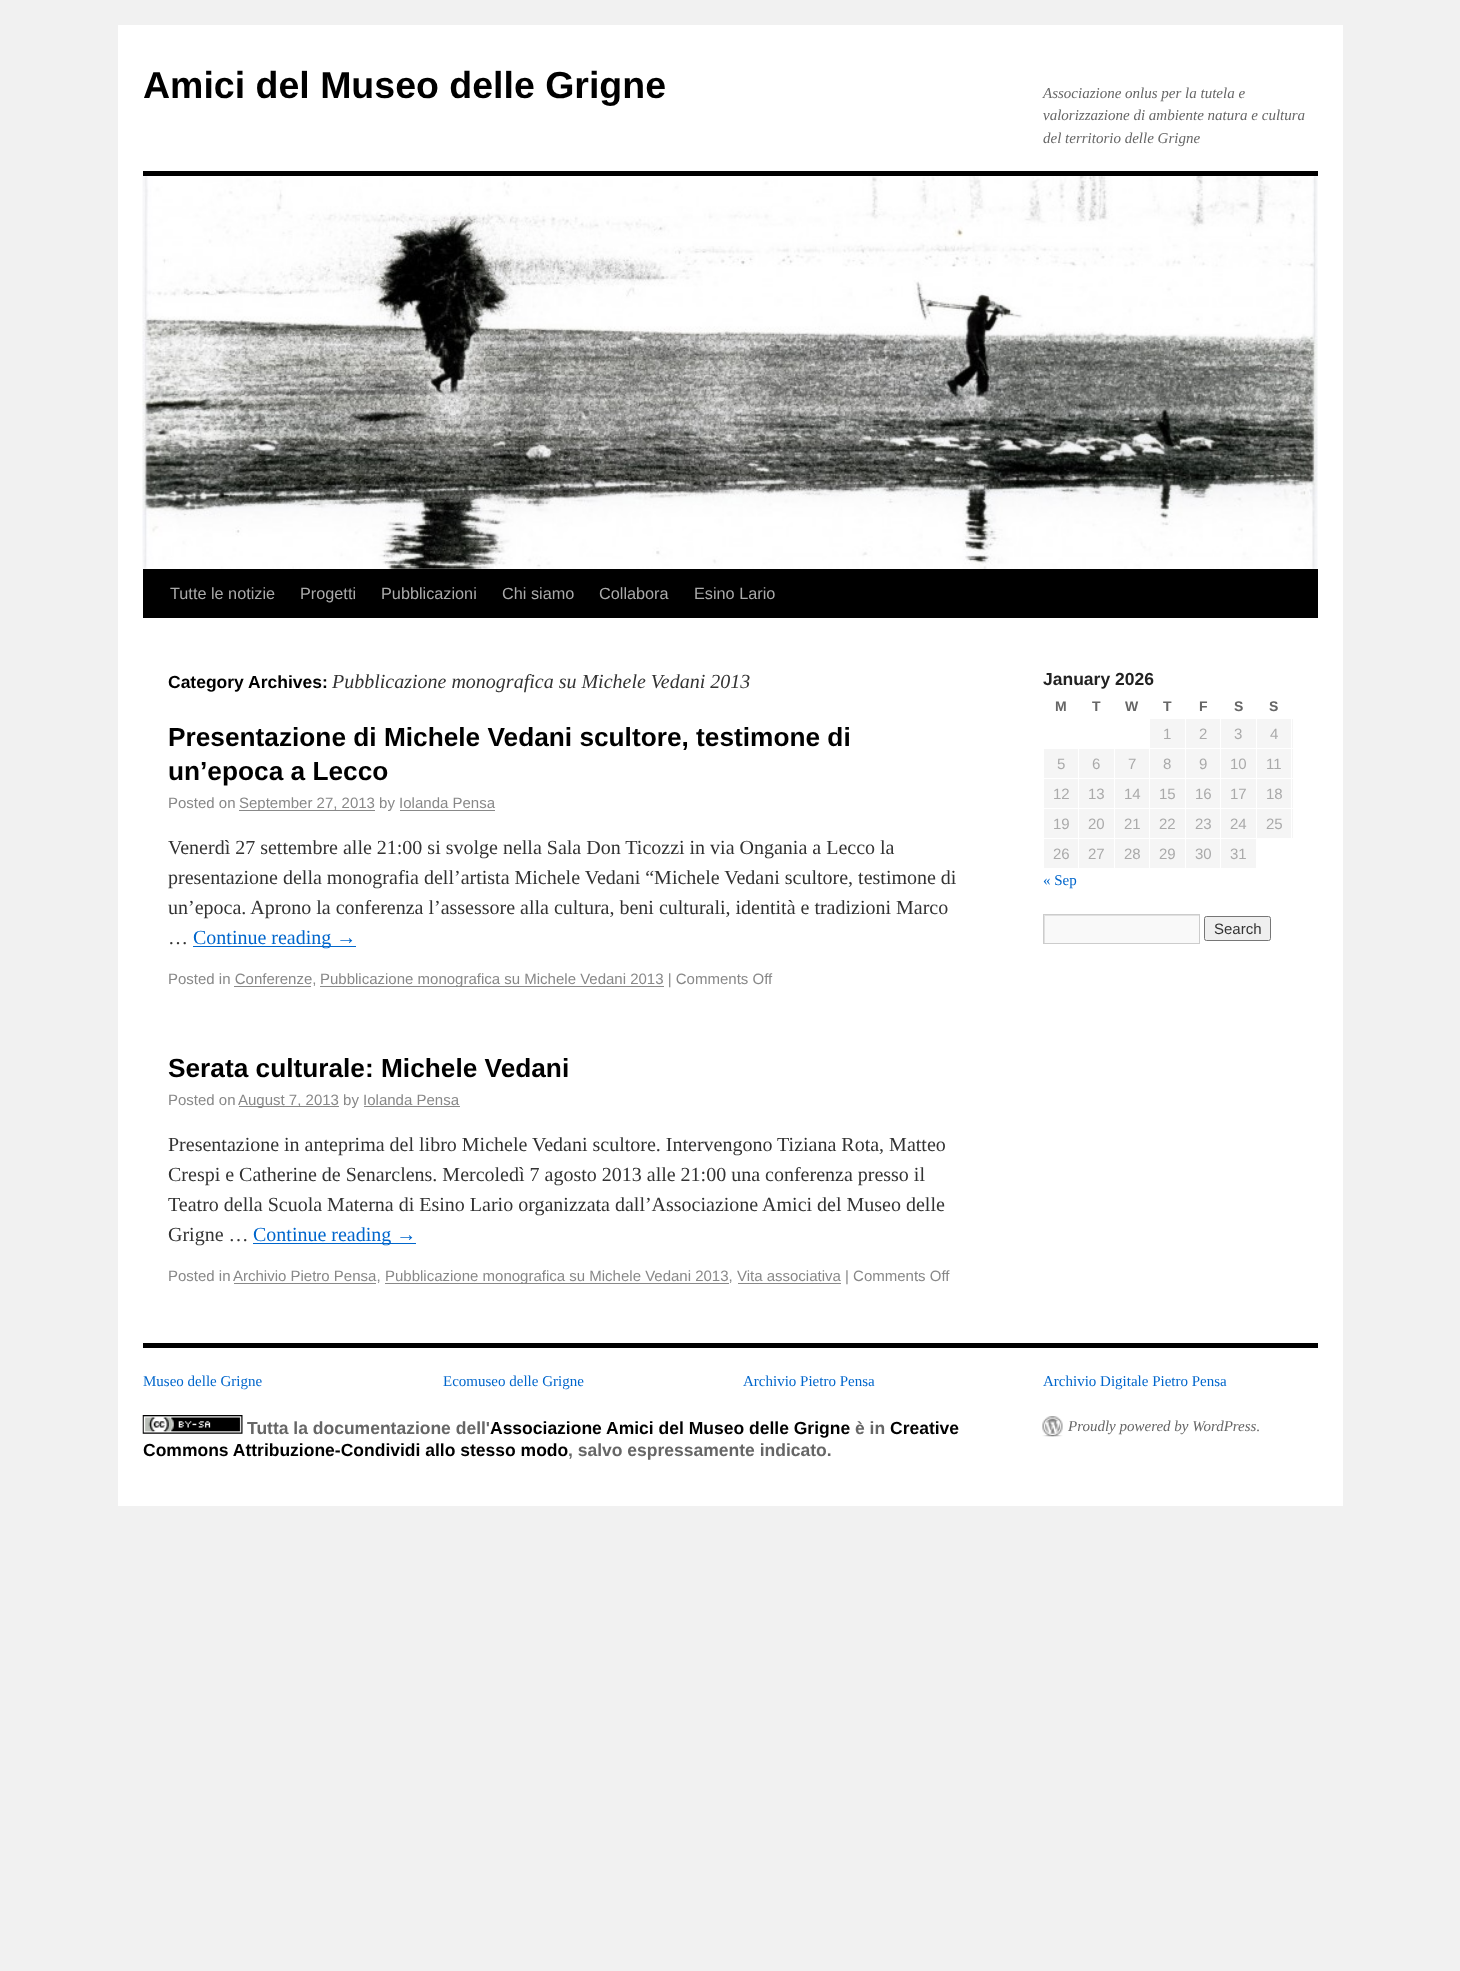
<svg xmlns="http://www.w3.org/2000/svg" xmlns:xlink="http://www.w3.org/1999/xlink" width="1460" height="1971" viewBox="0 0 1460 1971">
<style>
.cls-1{font:bold 37.5px Liberation Sans;fill:#000000}
.cls-2{font:italic 15px Liberation Serif;fill:#666666}
.cls-3{font:16.25px Liberation Sans;fill:#aaaaaa}
.cls-4{font:bold 17.5px Liberation Sans;fill:#000000}
.cls-5{font:italic 20px Liberation Serif;fill:#333333}
.cls-6{font:bold 26.25px Liberation Sans;fill:#000000}
.cls-7{font:15px Liberation Sans;fill:#888888}
.cls-8{font:20px Liberation Serif;fill:#333333}
.cls-9{font:20px Liberation Serif;fill:#0066cc}
.cls-10{font:bold 17.5px Liberation Sans;fill:#222222}
.cls-11{font:bold 14px Liberation Sans;fill:#666666}
.cls-12{font:15px Liberation Sans;fill:#aaaaaa}
.cls-13{font:15px Liberation Serif;fill:#0066cc}
.cls-14{font:15px Liberation Sans;fill:#333333}
.cls-15{font:bold 17.5px Liberation Sans;fill:#666666}
</style>
<defs>
<clipPath id="clip1"><rect x="1044" y="915" width="155" height="28"/></clipPath>
</defs>
<rect width="100%" height="100%" fill="#f1f1f1"/>
<rect fill="#ffffff" x="118" y="25" width="1225" height="1481"/>
<rect fill="#000000" x="143" y="171" width="1175" height="5"/>
<rect fill="#000000" x="143" y="569" width="1175" height="49"/>
<image xlink:href="image0.png" x="142" y="176" width="1176" height="393"/>
<rect fill="#888888" x="239" y="810" width="136" height="1"/>
<rect fill="#888888" x="400" y="810" width="95" height="1"/>
<rect fill="#0066cc" x="193" y="946" width="163" height="1"/>
<rect fill="#888888" x="234" y="986" width="77" height="1"/>
<rect fill="#888888" x="320" y="986" width="344" height="1"/>
<rect fill="#888888" x="239" y="1106" width="100" height="1"/>
<rect fill="#888888" x="364" y="1106" width="96" height="1"/>
<rect fill="#0066cc" x="253" y="1243" width="163" height="1"/>
<rect fill="#888888" x="234" y="1283" width="142" height="1"/>
<rect fill="#888888" x="385" y="1283" width="344" height="1"/>
<rect fill="#888888" x="738" y="1283" width="103" height="1"/>
<rect fill="#f5f5f5" x="1150" y="719" width="35" height="29"/>
<rect fill="#f5f5f5" x="1186" y="719" width="34" height="29"/>
<rect fill="#f5f5f5" x="1221" y="719" width="35" height="29"/>
<rect fill="#f5f5f5" x="1257" y="719" width="36" height="29"/>
<rect fill="#f5f5f5" x="1044" y="749" width="34" height="29"/>
<rect fill="#f5f5f5" x="1079" y="749" width="35" height="29"/>
<rect fill="#f5f5f5" x="1115" y="749" width="34" height="29"/>
<rect fill="#f5f5f5" x="1150" y="749" width="35" height="29"/>
<rect fill="#f5f5f5" x="1186" y="749" width="34" height="29"/>
<rect fill="#f5f5f5" x="1221" y="749" width="35" height="29"/>
<rect fill="#f5f5f5" x="1257" y="749" width="36" height="29"/>
<rect fill="#f5f5f5" x="1044" y="779" width="34" height="29"/>
<rect fill="#f5f5f5" x="1079" y="779" width="35" height="29"/>
<rect fill="#f5f5f5" x="1115" y="779" width="34" height="29"/>
<rect fill="#f5f5f5" x="1150" y="779" width="35" height="29"/>
<rect fill="#f5f5f5" x="1186" y="779" width="34" height="29"/>
<rect fill="#f5f5f5" x="1221" y="779" width="35" height="29"/>
<rect fill="#f5f5f5" x="1257" y="779" width="36" height="29"/>
<rect fill="#f5f5f5" x="1044" y="809" width="34" height="29"/>
<rect fill="#f5f5f5" x="1079" y="809" width="35" height="29"/>
<rect fill="#f5f5f5" x="1115" y="809" width="34" height="29"/>
<rect fill="#f5f5f5" x="1150" y="809" width="35" height="29"/>
<rect fill="#f5f5f5" x="1186" y="809" width="34" height="29"/>
<rect fill="#f5f5f5" x="1221" y="809" width="35" height="29"/>
<rect fill="#f5f5f5" x="1257" y="809" width="36" height="29"/>
<rect fill="#ffffff" x="1291" y="718" width="1" height="121"/>
<rect fill="#f5f5f5" x="1044" y="839" width="34" height="29"/>
<rect fill="#f5f5f5" x="1079" y="839" width="35" height="29"/>
<rect fill="#f5f5f5" x="1115" y="839" width="34" height="29"/>
<rect fill="#f5f5f5" x="1150" y="839" width="35" height="29"/>
<rect fill="#f5f5f5" x="1186" y="839" width="34" height="29"/>
<rect fill="#f5f5f5" x="1221" y="839" width="35" height="29"/>
<rect fill="#f9f9f9" x="1045" y="916" width="154" height="27"/>
<g clip-path="url(#clip1)">
<path fill="#e0e0e0" fill-rule="evenodd" d="M920 791H1322V1066H920ZM1045 916H1200V944H1045Z"/>
</g>
<rect fill="none" stroke="#cccccc" x="1043.5" y="914.5" width="156" height="29"/>
<rect fill="#efefef" stroke="#767676" x="1204.5" y="916.5" width="66" height="24" rx="2"/>
<rect fill="#000000" x="143" y="1343" width="1175" height="5"/>
<image xlink:href="image1.png" x="142" y="1415" width="101" height="19"/>
<image xlink:href="image2.png" x="1042" y="1416" width="21" height="21"/>
<text class="cls-1" x="143" y="98">Amici del Museo delle Grigne</text>
<text class="cls-2"><tspan x="1043" y="98">Associazione onlus per la tutela e</tspan><tspan x="1043" y="120">valorizzazione di ambiente natura e cultura</tspan><tspan x="1043" y="143">del territorio delle Grigne</tspan></text>
<text class="cls-3" x="170" y="599">Tutte le notizie</text>
<text class="cls-3" x="300" y="599">Progetti</text>
<text class="cls-3" x="381" y="599">Pubblicazioni</text>
<text class="cls-3" x="502" y="599">Chi siamo</text>
<text class="cls-3" x="599" y="599">Collabora</text>
<text class="cls-3" x="694" y="599">Esino Lario</text>
<text class="cls-4" x="168" y="688">Category Archives:</text>
<text class="cls-5" x="332" y="688">Pubblicazione monografica su Michele Vedani 2013</text>
<text class="cls-6"><tspan x="168" y="746">Presentazione di Michele Vedani scultore, testimone di</tspan><tspan x="168" y="780">un’epoca a Lecco</tspan></text>
<text class="cls-7" x="168" y="808">Posted on</text>
<text class="cls-7" x="239" y="808">September 27, 2013 by Iolanda Pensa</text>
<text class="cls-8"><tspan x="168" y="854">Venerdì 27 settembre alle 21:00 si svolge nella Sala Don Ticozzi in via Ongania a Lecco la</tspan><tspan x="168" y="884">presentazione della monografia dell’artista Michele Vedani “Michele Vedani scultore, testimone di</tspan><tspan x="168" y="914">un’epoca. Aprono la conferenza l’assessore alla cultura, beni culturali, identità e tradizioni Marco</tspan><tspan x="168" y="944">…</tspan></text>
<text class="cls-9" x="193" y="944">Continue reading →</text>
<text class="cls-7" x="168" y="984">Posted in Conferenze,</text>
<text class="cls-7" x="320" y="984">Pubblicazione monografica su Michele Vedani 2013 | Comments Off</text>
<text class="cls-6" x="168" y="1077">Serata culturale: Michele Vedani</text>
<text class="cls-7" x="168" y="1105">Posted on</text>
<text class="cls-7" x="238" y="1105">August 7, 2013 by Iolanda Pensa</text>
<text class="cls-8"><tspan x="168" y="1151">Presentazione in anteprima del libro Michele Vedani scultore. Intervengono Tiziana Rota, Matteo</tspan><tspan x="168" y="1181">Crespi e Catherine de Senarclens. Mercoledì 7 agosto 2013 alle 21:00 una conferenza presso il</tspan><tspan x="168" y="1211">Teatro della Scuola Materna di Esino Lario organizzata dall’Associazione Amici del Museo delle</tspan><tspan x="168" y="1241">Grigne …</tspan></text>
<text class="cls-9" x="253" y="1241">Continue reading →</text>
<text class="cls-7" x="168" y="1281">Posted in</text>
<text class="cls-7" x="233" y="1281">Archivio Pietro Pensa,</text>
<text class="cls-7" x="385" y="1281">Pubblicazione monografica su Michele Vedani 2013, Vita associativa | Comments Off</text>
<text class="cls-10" x="1043" y="685">January 2026</text>
<text class="cls-11" x="1055" y="711">M</text>
<text class="cls-11" x="1092" y="711">T</text>
<text class="cls-11" x="1125" y="711">W</text>
<text class="cls-11" x="1163" y="711">T</text>
<text class="cls-11" x="1199" y="711">F</text>
<text class="cls-11" x="1234" y="711">S</text>
<text class="cls-11" x="1269" y="711">S</text>
<text class="cls-12" x="1163" y="739">1</text>
<text class="cls-12" x="1199" y="739">2</text>
<text class="cls-12" x="1234" y="739">3</text>
<text class="cls-12" x="1270" y="739">4</text>
<text class="cls-12" x="1057" y="769">5</text>
<text class="cls-12" x="1092" y="769">6</text>
<text class="cls-12" x="1128" y="769">7</text>
<text class="cls-12" x="1163" y="769">8</text>
<text class="cls-12" x="1199" y="769">9</text>
<text class="cls-12" x="1230" y="769">10</text>
<text class="cls-12" x="1266" y="769">11</text>
<text class="cls-12" x="1053" y="799">12</text>
<text class="cls-12" x="1088" y="799">13</text>
<text class="cls-12" x="1124" y="799">14</text>
<text class="cls-12" x="1159" y="799">15</text>
<text class="cls-12" x="1195" y="799">16</text>
<text class="cls-12" x="1230" y="799">17</text>
<text class="cls-12" x="1266" y="799">18</text>
<text class="cls-12" x="1053" y="829">19</text>
<text class="cls-12" x="1088" y="829">20</text>
<text class="cls-12" x="1124" y="829">21</text>
<text class="cls-12" x="1159" y="829">22</text>
<text class="cls-12" x="1195" y="829">23</text>
<text class="cls-12" x="1230" y="829">24</text>
<text class="cls-12" x="1266" y="829">25</text>
<text class="cls-12" x="1053" y="859">26</text>
<text class="cls-12" x="1088" y="859">27</text>
<text class="cls-12" x="1124" y="859">28</text>
<text class="cls-12" x="1159" y="859">29</text>
<text class="cls-12" x="1195" y="859">30</text>
<text class="cls-12" x="1230" y="859">31</text>
<text class="cls-13" x="1043" y="885">« Sep</text>
<text class="cls-14" x="1214" y="934">Search</text>
<text class="cls-13" x="143" y="1386">Museo delle Grigne</text>
<text class="cls-13" x="443" y="1386">Ecomuseo delle Grigne</text>
<text class="cls-13" x="743" y="1386">Archivio Pietro Pensa</text>
<text class="cls-13" x="1043" y="1386">Archivio Digitale Pietro Pensa</text>
<text class="cls-15" x="247" y="1434">Tutta la documentazione dell'</text>
<text class="cls-4" x="490" y="1434">Associazione Amici del Museo delle Grigne</text>
<text class="cls-15" x="855" y="1434">è in</text>
<text class="cls-4" x="890" y="1434">Creative</text>
<text class="cls-4" x="143" y="1456">Commons Attribuzione-Condividi allo stesso modo</text>
<text class="cls-15" x="568" y="1456">, salvo espressamente indicato.</text>
<text class="cls-2" x="1068" y="1431">Proudly powered by WordPress.</text>
</svg>
